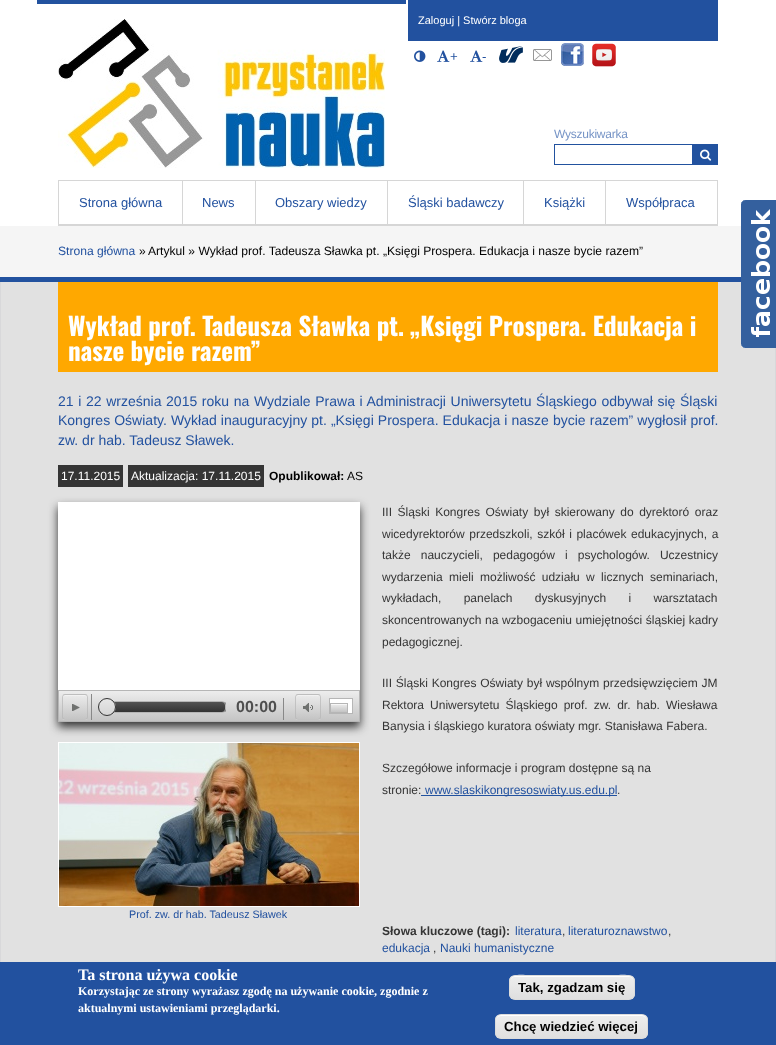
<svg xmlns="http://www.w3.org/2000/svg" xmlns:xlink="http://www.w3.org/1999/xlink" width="776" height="1045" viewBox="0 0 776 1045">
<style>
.cls-1{font:11px Liberation Sans;fill:#ffffff}
.cls-2{font:13.25px Liberation Sans;fill:#22519f}
.cls-3{font:12px Liberation Sans;letter-spacing:-0.25px;fill:#7694c6}
.cls-4{font:13px Liberation Sans;fill:#22519f}
.cls-5{font:12.1px Liberation Sans;fill:#22519f}
.cls-6{font:12.1px Liberation Sans;fill:#000000}
.cls-7{font:bold 25px Oswald;fill:#ffffff}
.cls-8{font:14px Liberation Sans;fill:#22519f}
.cls-9{font:12px Liberation Sans;fill:#ffffff}
.cls-10{font:bold 12px Liberation Sans;fill:#000000}
.cls-11{font:12px Liberation Sans;fill:#000000}
.cls-12{font:bold 16px Liberation Sans;fill:#4f4f4f}
.cls-13{font:12px Liberation Sans;fill:#353535}
.cls-14{font:12px Liberation Sans;fill:#22519f}
.cls-15{font:10.75px Liberation Sans;fill:#22519f}
.cls-16{font:bold 12px Liberation Sans;fill:#353535}
.cls-17{font:bold 16px Liberation Serif;fill:#ffffff}
.cls-18{font:bold 12px Liberation Serif;fill:#ffffff}
.cls-19{font:bold 13.25px Liberation Sans;fill:#000000}
</style>
<defs>
<linearGradient id="g1" gradientUnits="userSpaceOnUse" x1="209" y1="691" x2="209" y2="721"><stop offset="0" stop-color="#ededed"/><stop offset="1" stop-color="#c4c4c4"/></linearGradient>
<clipPath id="clip1"><rect x="62" y="694" width="26" height="26" rx="3"/></clipPath>
<linearGradient id="g2" gradientUnits="userSpaceOnUse" x1="75" y1="671" x2="75" y2="695"><stop offset="0" stop-color="#ececec"/><stop offset="1" stop-color="#cfcfcf"/></linearGradient>
<linearGradient id="g3" gradientUnits="userSpaceOnUse" x1="75" y1="695" x2="75" y2="719"><stop offset="0" stop-color="#ededed" stop-opacity="0.7"/><stop offset="1" stop-color="#c4c4c4" stop-opacity="0.7"/></linearGradient>
<linearGradient id="g4" gradientUnits="userSpaceOnUse" x1="75" y1="719" x2="75" y2="743"><stop offset="0" stop-color="#e1e1e1"/><stop offset="1" stop-color="#c5c5c5"/></linearGradient>
<clipPath id="clip2"><rect x="102" y="701" width="124" height="12" rx="4"/></clipPath>
<linearGradient id="g5" gradientUnits="userSpaceOnUse" x1="103" y1="702" x2="103" y2="712"><stop offset="0" stop-color="#535353"/><stop offset="1" stop-color="#333333"/></linearGradient>
<clipPath id="clip3"><rect x="98" y="698" width="18" height="18" rx="9"/></clipPath>
<linearGradient id="g6" gradientUnits="userSpaceOnUse" x1="99" y1="699" x2="99" y2="715"><stop offset="0" stop-color="#e6e6e6"/><stop offset="1" stop-color="#d5d5d5"/></linearGradient>
<clipPath id="clip4"><rect x="295" y="694" width="26" height="26" rx="3"/></clipPath>
<linearGradient id="g7" gradientUnits="userSpaceOnUse" x1="308" y1="671" x2="308" y2="695"><stop offset="0" stop-color="#ececec"/><stop offset="1" stop-color="#cfcfcf"/></linearGradient>
<linearGradient id="g8" gradientUnits="userSpaceOnUse" x1="308" y1="695" x2="308" y2="719"><stop offset="0" stop-color="#ededed" stop-opacity="0.7"/><stop offset="1" stop-color="#c4c4c4" stop-opacity="0.7"/></linearGradient>
<linearGradient id="g9" gradientUnits="userSpaceOnUse" x1="308" y1="719" x2="308" y2="743"><stop offset="0" stop-color="#e1e1e1"/><stop offset="1" stop-color="#c5c5c5"/></linearGradient>
<linearGradient id="g10" gradientUnits="userSpaceOnUse" x1="339" y1="704" x2="339" y2="712"><stop offset="0" stop-color="#ededed"/><stop offset="1" stop-color="#c4c4c4"/></linearGradient>
<clipPath id="clip5"><rect x="509" y="975" width="126" height="25" rx="6"/></clipPath>
<linearGradient id="g11" gradientUnits="userSpaceOnUse" x1="510" y1="976" x2="510" y2="999"><stop offset="0.05" stop-color="#ededed"/><stop offset="1" stop-color="#dfdfdf"/></linearGradient>
<clipPath id="clip6"><rect x="495" y="1014" width="153" height="25" rx="6"/></clipPath>
<linearGradient id="g12" gradientUnits="userSpaceOnUse" x1="496" y1="1015" x2="496" y2="1038"><stop offset="0.05" stop-color="#ededed"/><stop offset="1" stop-color="#dfdfdf"/></linearGradient>
</defs>
<rect width="100%" height="100%" fill="#ffffff"/>
<rect fill="#22529f" x="37" y="0" width="369" height="4"/>
<image xlink:href="image0.png" x="58" y="19" width="327" height="149"/>
<rect fill="#d6d6d6" x="58" y="225" width="660" height="1"/>
<rect fill="#22519f" x="408" y="0" width="310" height="41"/>
<image xlink:href="image1.png" x="414" y="50" width="12" height="12"/>
<image xlink:href="image2.png" x="437" y="50" width="13" height="12"/>
<image xlink:href="image2.png" x="470" y="50" width="13" height="12"/>
<image xlink:href="image3.png" x="499" y="46" width="24" height="17"/>
<image xlink:href="image4.png" x="533" y="49" width="19" height="12"/>
<image xlink:href="image5.png" x="561" y="43" width="23" height="23"/>
<image xlink:href="image6.png" x="592" y="43" width="24" height="24"/>
<rect fill="none" stroke="#22529f" x="554.5" y="144.5" width="138" height="20"/>
<rect fill="#22529f" x="693" y="144" width="25" height="21"/>
<image xlink:href="image7.png" x="700" y="149" width="12" height="12"/>
<rect fill="none" stroke="#d6d6d6" x="58.5" y="180.5" width="659" height="44"/>
<rect fill="#d6d6d6" x="182" y="181" width="1" height="43"/>
<rect fill="#d6d6d6" x="255" y="181" width="1" height="43"/>
<rect fill="#d6d6d6" x="387" y="181" width="1" height="43"/>
<rect fill="#d6d6d6" x="523" y="181" width="1" height="43"/>
<rect fill="#d6d6d6" x="605" y="181" width="1" height="43"/>
<rect fill="#f5f5f5" x="0" y="226" width="741" height="51"/>
<rect fill="#22529f" x="0" y="277" width="741" height="5"/>
<rect fill="#e1e1e1" x="1" y="282" width="774" height="680"/>
<rect fill="#d8d8da" x="775" y="348" width="1" height="614"/>
<rect fill="#d8d8da" x="0" y="282" width="1" height="680"/>
<rect fill="#ffa800" x="58" y="282" width="660" height="90"/>
<rect fill="#353535" x="58" y="465" width="65" height="22"/>
<rect fill="#353535" x="128" y="465" width="136" height="22"/>
<rect fill="none" stroke="#ffffff" x="58.5" y="742.5" width="301" height="164"/>
<rect fill="#333333" filter="blur(5px)" x="58" y="507" width="302" height="220"/>
<rect fill="#ffffff" x="58" y="502" width="302" height="188"/>
<rect fill="url(#g1)" x="59" y="691" width="300" height="30"/>
<rect fill="none" stroke="#b6b6b6" x="58.5" y="690.5" width="301" height="31"/>
<rect fill="#888888" x="91" y="694" width="1" height="26"/>
<g clip-path="url(#clip1)">
<rect fill="url(#g2)" x="62" y="694" width="26" height="1"/>
<rect fill="url(#g3)" x="62" y="695" width="26" height="24"/>
<rect fill="url(#g4)" x="62" y="719" width="26" height="1"/>
</g>
<path fill="#f2f2f2" d="M65 696H85C86 696 87 697 87 698C87 694.5 85 695 81.5 695H68.5C65 695 63 694.5 63 698C63 697 64 696 65 696Z"/>
<rect fill="none" stroke="#b6b6b6" stroke-opacity="0.7" x="62.5" y="694.5" width="25" height="25" rx="2.5"/>
<image xlink:href="image8.png" x="72" y="704" width="8" height="7"/>
<g clip-path="url(#clip2)">
<rect fill="url(#g5)" x="114" y="702" width="112" height="10"/>
</g>
<rect fill="none" stroke="#b6b6b6" x="102.5" y="701.5" width="123" height="11" rx="3.5"/>
<g clip-path="url(#clip3)">
<rect fill="url(#g6)" x="98" y="699" width="18" height="16"/>
</g>
<circle fill="none" stroke="#333333" cx="107" cy="707" r="8.5"/>
<rect fill="#888888" x="283" y="698" width="1" height="22"/>
<g clip-path="url(#clip4)">
<rect fill="url(#g7)" x="295" y="694" width="26" height="1"/>
<rect fill="url(#g8)" x="295" y="695" width="26" height="24"/>
<rect fill="url(#g9)" x="295" y="719" width="26" height="1"/>
</g>
<path fill="#f2f2f2" d="M298 696H318C319 696 320 697 320 698C320 694.5 318 695 314.5 695H301.5C298 695 296 694.5 296 698C296 697 297 696 298 696Z"/>
<rect fill="none" stroke="#b6b6b6" stroke-opacity="0.7" x="295.5" y="694.5" width="25" height="25" rx="2.5"/>
<image xlink:href="image9.png" x="303" y="703" width="10" height="9"/>
<rect fill="#ffffff" stroke="#b6b6b6" x="329.5" y="698.5" width="23" height="15"/>
<rect fill="url(#g10)" x="330" y="705" width="18" height="7"/>
<rect fill="#f7f7f7" x="331" y="704" width="16" height="1"/>
<rect fill="none" stroke="#b6b6b6" x="330.5" y="703.5" width="17" height="9"/>
<rect fill="#22529f" x="421" y="795" width="196" height="1"/>
<image xlink:href="image10.png" x="59" y="743" width="300" height="163"/>
<image xlink:href="image11.png" x="741" y="200" width="35" height="148"/>
<rect fill="#22519f" x="0" y="962" width="776" height="83"/>
<g clip-path="url(#clip5)">
<rect fill="url(#g11)" x="509" y="976" width="126" height="23"/>
</g>
<path fill="#ffffff" d="M515 977H629C632 977 634 979 634 982C634 971 614 976 610 976H534C530 976 510 971 510 982C510 979 512 977 515 977Z"/>
<rect fill="none" stroke="#dcdcdc" x="509.5" y="975.5" width="125" height="24" rx="5.5"/>
<g clip-path="url(#clip6)">
<rect fill="url(#g12)" x="495" y="1015" width="153" height="23"/>
</g>
<path fill="#ffffff" d="M501 1016H642C645 1016 647 1018 647 1021V1020C647 1017 645 1015 642 1015H501C498 1015 496 1017 496 1020V1021C496 1018 498 1016 501 1016Z"/>
<rect fill="none" stroke="#dcdcdc" x="495.5" y="1014.5" width="152" height="24" rx="5.5"/>
<text class="cls-1" x="418" y="24">Zaloguj | Stwórz bloga</text>
<text class="cls-2" x="450" y="61">+</text>
<text class="cls-2" x="482" y="61">-</text>
<text class="cls-3" x="554" y="138">Wyszukiwarka</text>
<text class="cls-4" x="79" y="207">Strona główna</text>
<text class="cls-4" x="202" y="207">News</text>
<text class="cls-4" x="275" y="207">Obszary wiedzy</text>
<text class="cls-4" x="408" y="207">Śląski badawczy</text>
<text class="cls-4" x="544" y="207">Książki</text>
<text class="cls-4" x="626" y="207">Współpraca</text>
<text class="cls-5" x="58" y="255">Strona główna</text>
<text class="cls-6" x="139" y="255">»</text>
<text class="cls-6" x="148" y="255">Artykul » Wykład prof. Tadeusza Sławka pt. „Księgi Prospera. Edukacja i nasze bycie razem”</text>
<text class="cls-7"><tspan x="68" y="336">Wykład prof. Tadeusza Sławka pt. „Księgi Prospera. Edukacja i</tspan><tspan x="68" y="361">nasze bycie razem”</tspan></text>
<text class="cls-8"><tspan x="58" y="406" word-spacing="0.75">21 i 22 września 2015 roku na Wydziale Prawa i Administracji Uniwersytetu Śląskiego odbywał się Śląski</tspan><tspan x="58" y="425" word-spacing="0.2">Kongres Oświaty. Wykład inauguracyjny pt. „Księgi Prospera. Edukacja i nasze bycie razem” wygłosił prof.</tspan><tspan x="58" y="445">zw. dr hab. Tadeusz Sławek.</tspan></text>
<text class="cls-9" x="61" y="480">17.11.2015</text>
<text class="cls-9" x="131" y="480">Aktualizacja: 17.11.2015</text>
<text class="cls-10" x="269" y="480">Opublikował:</text>
<text class="cls-11" x="347" y="480">AS</text>
<text class="cls-12" x="236" y="712">00:00</text>
<text class="cls-13"><tspan x="382" y="516" word-spacing="2.25">III Śląski Kongres Oświaty był skierowany do dyrektoró oraz</tspan><tspan x="382" y="538" word-spacing="1.25">wicedyrektorów przedszkoli, szkół i placówek edukacyjnych, a</tspan><tspan x="382" y="559" word-spacing="6.75">także nauczycieli, pedagogów i psychologów. Uczestnicy</tspan><tspan x="382" y="581" word-spacing="3">wydarzenia mieli możliwość udziału w licznych seminariach,</tspan><tspan x="382" y="602" word-spacing="19">wykładach, panelach dyskusyjnych i warsztatach</tspan><tspan x="382" y="624" word-spacing="0.25">skoncentrowanych na wzbogaceniu umiejętności śląskiej kadry</tspan><tspan x="382" y="646">pedagogicznej.</tspan></text>
<text class="cls-13"><tspan x="382" y="687" word-spacing="0.5">III Śląski Kongres Oświaty był wspólnym przedsięwzięciem JM</tspan><tspan x="382" y="709" word-spacing="2.75">Rektora Uniwersytetu Śląskiego prof. zw. dr. hab. Wiesława</tspan><tspan x="382" y="730">Banysia i śląskiego kuratora oświaty mgr. Stanisława Fabera.</tspan></text>
<text class="cls-13"><tspan x="382" y="772">Szczegółowe informacje i program dostępne są na</tspan><tspan x="382" y="794">stronie:</tspan></text>
<text class="cls-14" x="425" y="794">www.slaskikongresoswiaty.us.edu.pl</text>
<text class="cls-13" x="617" y="794">.</text>
<text class="cls-15" x="129" y="918">Prof. zw. dr hab. Tadeusz Sławek</text>
<text class="cls-16" x="382" y="935">Słowa kluczowe (tagi):</text>
<text class="cls-14" x="515" y="935">literatura</text>
<text class="cls-13" x="562" y="935">,</text>
<text class="cls-14" x="568" y="935">literaturoznawstwo</text>
<text class="cls-13" x="668" y="935">,</text>
<text class="cls-14" x="382" y="952">edukacja</text>
<text class="cls-13" x="433" y="952">,</text>
<text class="cls-14" x="440" y="952">Nauki humanistyczne</text>
<text class="cls-17" x="78" y="980">Ta strona używa cookie</text>
<text class="cls-18"><tspan x="78" y="995">Korzystając ze strony wyrażasz zgodę na używanie cookie, zgodnie z</tspan><tspan x="78" y="1012">aktualnymi ustawieniami przeglądarki.</tspan></text>
<text class="cls-19" x="518" y="992">Tak, zgadzam się</text>
<text class="cls-19" x="504" y="1031">Chcę wiedzieć więcej</text>
</svg>
